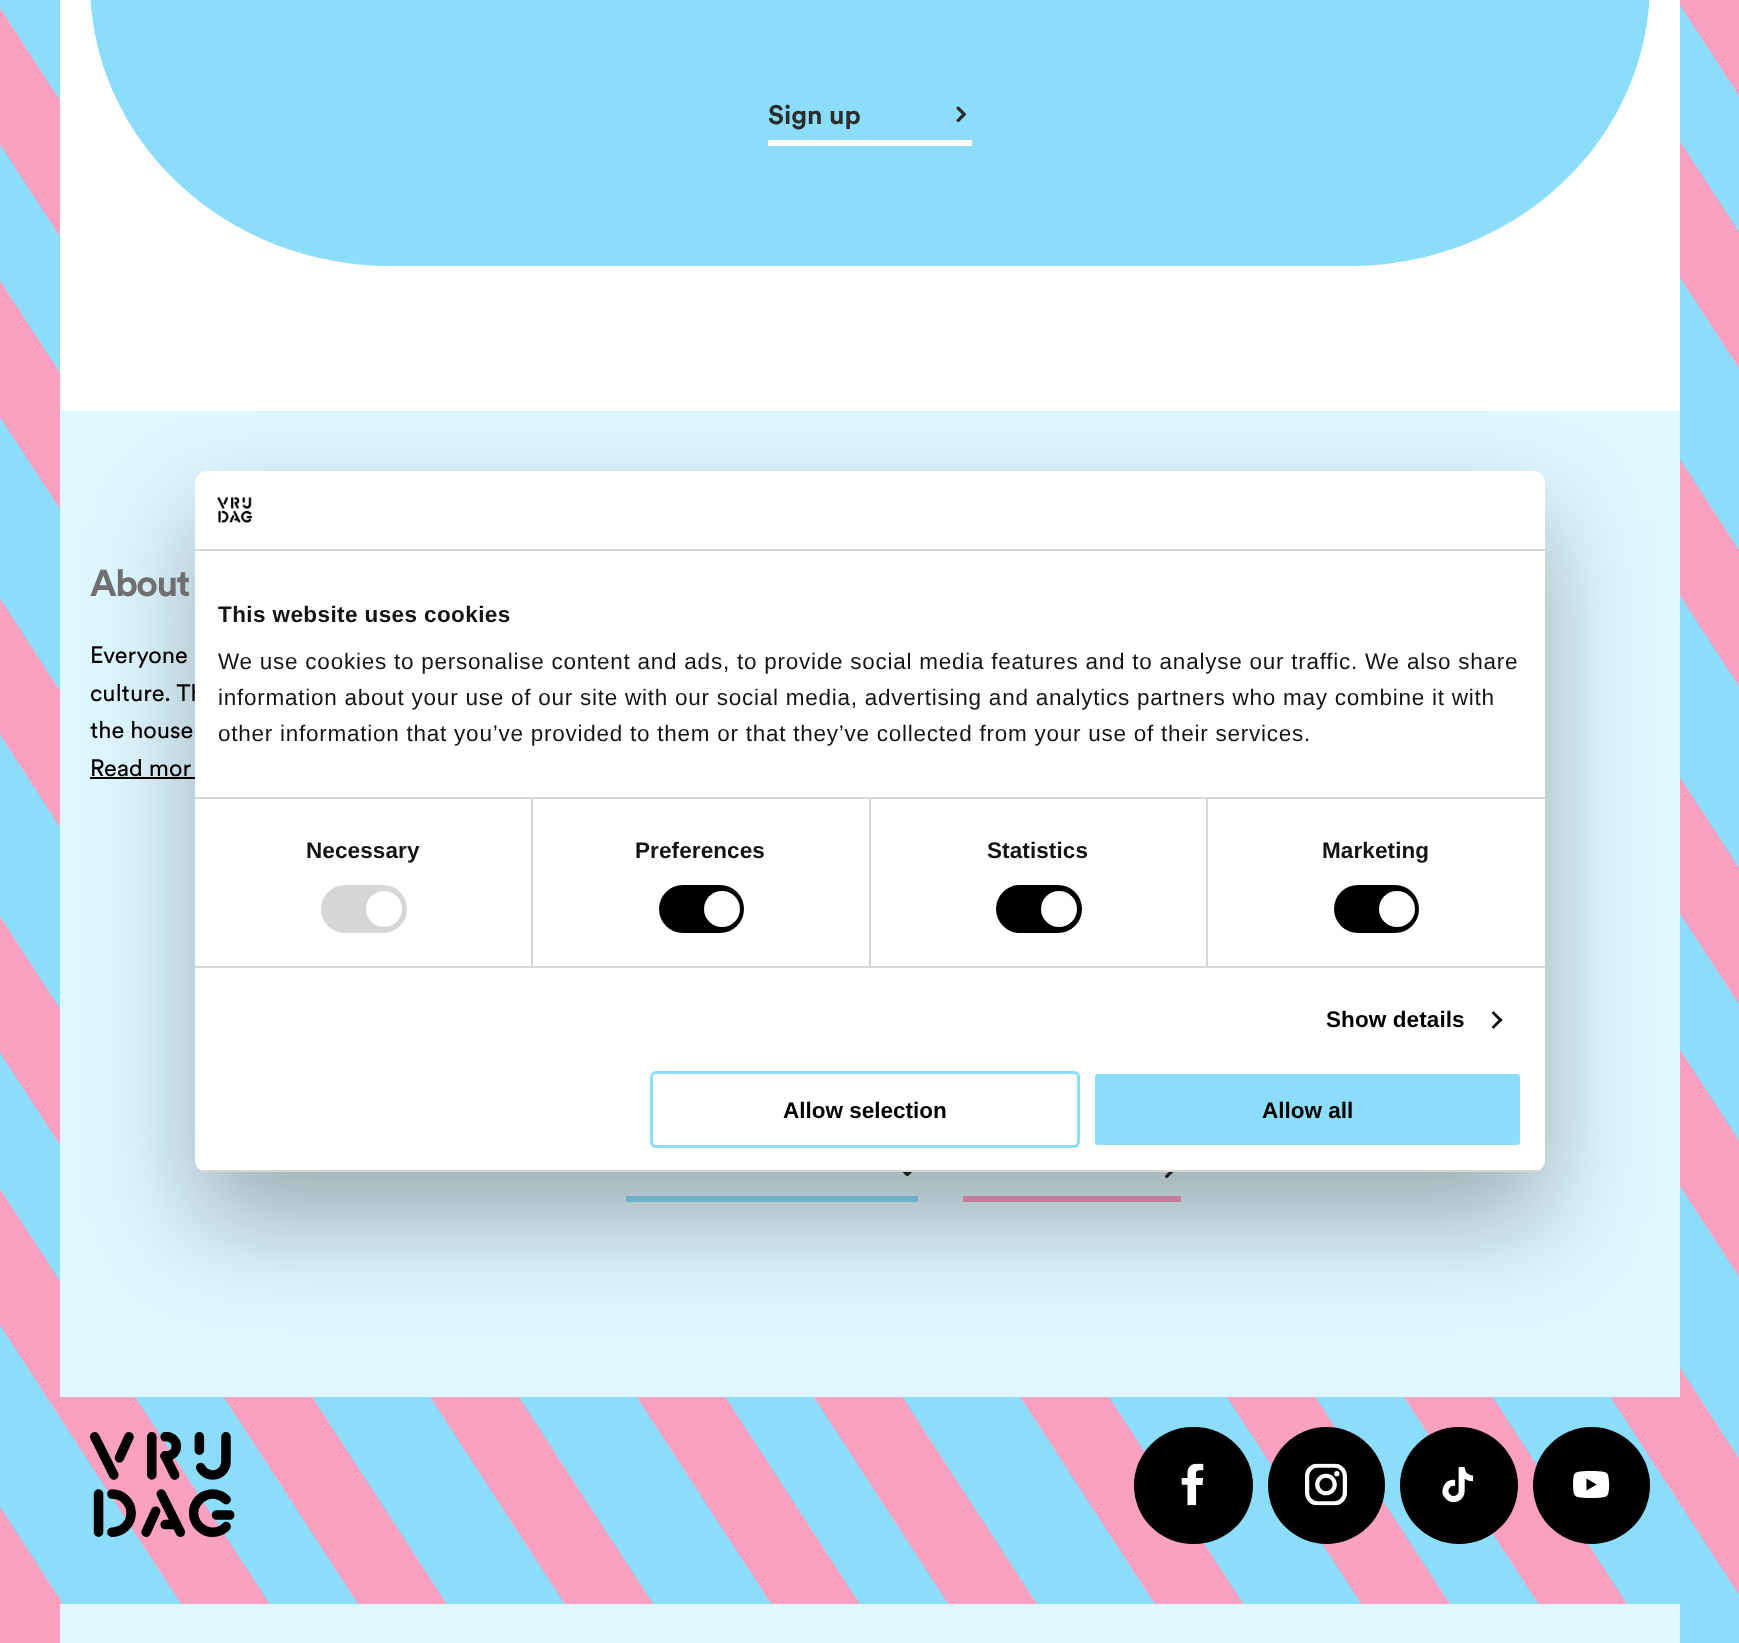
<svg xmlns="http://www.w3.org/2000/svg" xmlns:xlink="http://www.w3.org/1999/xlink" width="1739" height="1643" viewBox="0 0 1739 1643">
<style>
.cls-1{font:bold 26.5px Circular;fill:#2c2c2c}
.cls-2{font:bold 37px Circular;letter-spacing:-1.5px;fill:#6f6f6f}
.cls-3{font:23.5px Circular;fill:#000000}
.cls-4{font:bold 22.5px Liberation Sans;letter-spacing:0.4px;fill:#141414}
.cls-5{font:22.5px Liberation Sans;letter-spacing:0.75px;fill:#141414}
.cls-6{font:bold 22.5px Liberation Sans;letter-spacing:0.1px;fill:#141414}
.cls-7{font:bold 22.5px Liberation Sans;letter-spacing:0.1px;fill:#000000}
.cls-8{font:bold 22.5px Liberation Sans;fill:#000000}
</style>
<defs>
<linearGradient id="g1" gradientUnits="userSpaceOnUse" x1="-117" y1="1463" x2="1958" y2="115"><stop offset="0" stop-color="#faa0c0"/><stop offset="0.03" stop-color="#faa0c0"/><stop offset="0.03" stop-color="#8cddf9"/><stop offset="0.07" stop-color="#8cddf9"/><stop offset="0.07" stop-color="#faa0c0"/><stop offset="0.1" stop-color="#faa0c0"/><stop offset="0.1" stop-color="#8cddf9"/><stop offset="0.13" stop-color="#8cddf9"/><stop offset="0.13" stop-color="#faa0c0"/><stop offset="0.16" stop-color="#faa0c0"/><stop offset="0.16" stop-color="#8cddf9"/><stop offset="0.2" stop-color="#8cddf9"/><stop offset="0.2" stop-color="#faa0c0"/><stop offset="0.23" stop-color="#faa0c0"/><stop offset="0.23" stop-color="#8cddf9"/><stop offset="0.27" stop-color="#8cddf9"/><stop offset="0.27" stop-color="#faa0c0"/><stop offset="0.3" stop-color="#faa0c0"/><stop offset="0.3" stop-color="#8cddf9"/><stop offset="0.33" stop-color="#8cddf9"/><stop offset="0.33" stop-color="#faa0c0"/><stop offset="0.36" stop-color="#faa0c0"/><stop offset="0.36" stop-color="#8cddf9"/><stop offset="0.4" stop-color="#8cddf9"/><stop offset="0.4" stop-color="#faa0c0"/><stop offset="0.43" stop-color="#faa0c0"/><stop offset="0.43" stop-color="#8cddf9"/><stop offset="0.47" stop-color="#8cddf9"/><stop offset="0.47" stop-color="#faa0c0"/><stop offset="0.5" stop-color="#faa0c0"/><stop offset="0.5" stop-color="#8cddf9"/><stop offset="0.53" stop-color="#8cddf9"/><stop offset="0.53" stop-color="#faa0c0"/><stop offset="0.56" stop-color="#faa0c0"/><stop offset="0.56" stop-color="#8cddf9"/><stop offset="0.6" stop-color="#8cddf9"/><stop offset="0.6" stop-color="#faa0c0"/><stop offset="0.63" stop-color="#faa0c0"/><stop offset="0.63" stop-color="#8cddf9"/><stop offset="0.67" stop-color="#8cddf9"/><stop offset="0.67" stop-color="#faa0c0"/><stop offset="0.7" stop-color="#faa0c0"/><stop offset="0.7" stop-color="#8cddf9"/><stop offset="0.73" stop-color="#8cddf9"/><stop offset="0.73" stop-color="#faa0c0"/><stop offset="0.76" stop-color="#faa0c0"/><stop offset="0.76" stop-color="#8cddf9"/><stop offset="0.8" stop-color="#8cddf9"/><stop offset="0.8" stop-color="#faa0c0"/><stop offset="0.83" stop-color="#faa0c0"/><stop offset="0.83" stop-color="#8cddf9"/><stop offset="0.87" stop-color="#8cddf9"/><stop offset="0.87" stop-color="#faa0c0"/><stop offset="0.9" stop-color="#faa0c0"/><stop offset="0.9" stop-color="#8cddf9"/><stop offset="0.93" stop-color="#8cddf9"/><stop offset="0.93" stop-color="#faa0c0"/><stop offset="0.96" stop-color="#faa0c0"/><stop offset="0.96" stop-color="#8cddf9"/><stop offset="1" stop-color="#8cddf9"/></linearGradient>
<clipPath id="clip1"><rect x="195" y="471" width="1350" height="701" rx="12"/></clipPath>
</defs>
<rect width="100%" height="100%" fill="#ffffff"/>
<rect fill="url(#g1)" x="0" y="0" width="1739" height="1643"/>
<rect fill="#ffffff" x="60" y="0" width="1620" height="411"/>
<rect fill="#8cddf9" x="90" y="-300" width="1560" height="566" rx="300"/>
<image xlink:href="image0.png" x="956" y="106" width="10" height="17"/>
<rect fill="#ffffff" x="768" y="140" width="204" height="6"/>
<rect fill="#dff7ff" x="60" y="411" width="1620" height="986"/>
<rect fill="#000000" x="90" y="777" width="105" height="2"/>
<image xlink:href="image1.png" x="902" y="1172" width="10" height="4"/>
<rect fill="#8cddf9" x="626" y="1196" width="292" height="6"/>
<image xlink:href="image2.png" x="1165" y="1172" width="9" height="7"/>
<rect fill="#f29ec4" x="963" y="1196" width="218" height="6"/>
<image xlink:href="image3.png" x="90" y="1432" width="145" height="105"/>
<rect fill="#000000" x="1134" y="1427" width="119" height="117" rx="58.5"/>
<image xlink:href="image4.png" x="1181" y="1463" width="23" height="43"/>
<circle fill="#000000" cx="1326.5" cy="1485.5" r="58.5"/>
<image xlink:href="image5.png" x="1305" y="1463" width="42" height="43"/>
<rect fill="#000000" x="1400" y="1427" width="118" height="117" rx="58.5"/>
<image xlink:href="image6.png" x="1442" y="1467" width="32" height="36"/>
<circle fill="#000000" cx="1591.5" cy="1485.5" r="58.5"/>
<image xlink:href="image7.png" x="1573" y="1471" width="37" height="27"/>
<rect fill="#dff7ff" x="60" y="1604" width="1620" height="39"/>
<rect fill="#000000" fill-opacity="0.3" filter="blur(51px)" x="195" y="519" width="1350" height="701" rx="12"/>
<text class="cls-1" x="768" y="124">Sign up</text>
<text class="cls-2" x="90" y="596">About</text>
<text class="cls-3"><tspan x="90" y="663">Everyone</tspan><tspan x="90" y="701">culture. Th</tspan><tspan x="90" y="738">the house</tspan><tspan x="90" y="776">Read mor</tspan></text>
<rect fill="#ffffff" x="195" y="471" width="1350" height="701" rx="12"/>
<rect fill="#d6d6d6" x="195" y="549" width="1350" height="2"/>
<image xlink:href="image8.png" x="217" y="496" width="36" height="27"/>
<text class="cls-4" x="218" y="622">This website uses cookies</text>
<text class="cls-5"><tspan x="218" y="669">We use cookies to personalise content and ads, to provide social media features and to analyse our traffic. We also share</tspan><tspan x="218" y="705">information about your use of our site with our social media, advertising and analytics partners who may combine it with</tspan><tspan x="218" y="741">other information that you’ve provided to them or that they’ve collected from your use of their services.</tspan></text>
<rect fill="#d6d6d6" x="195" y="966" width="1350" height="2"/>
<rect fill="#d6d6d6" x="531" y="798" width="2" height="168"/>
<text class="cls-6" x="306" y="858">Necessary</text>
<rect fill="#d6d6d6" x="321" y="885" width="86" height="48" rx="24"/>
<circle fill="#ffffff" cx="384" cy="909" r="18"/>
<rect fill="#d6d6d6" x="869" y="798" width="2" height="168"/>
<text class="cls-6" x="635" y="858">Preferences</text>
<rect fill="#000000" x="659" y="885" width="85" height="48" rx="24"/>
<circle fill="#ffffff" cx="722" cy="909" r="18"/>
<rect fill="#d6d6d6" x="1206" y="798" width="2" height="168"/>
<rect fill="#d6d6d6" x="195" y="797" width="1350" height="2"/>
<text class="cls-6" x="987" y="858">Statistics</text>
<rect fill="#000000" x="996" y="885" width="86" height="48" rx="24"/>
<circle fill="#ffffff" cx="1059" cy="909" r="18"/>
<text class="cls-6" x="1322" y="858">Marketing</text>
<rect fill="#000000" x="1334" y="885" width="85" height="48" rx="24"/>
<circle fill="#ffffff" cx="1397" cy="909" r="18"/>
<text class="cls-7" x="1326" y="1027">Show details</text>
<path fill="#141414" d="M1493.5 1011L1502.5 1020L1500.5 1022L1491.5 1013Z"/>
<path fill="#141414" d="M1500.5 1018L1502.5 1020L1493.5 1029L1491.5 1027Z"/>
<g clip-path="url(#clip1)">
<rect fill="#d6d6d6" x="195" y="1170" width="1350" height="2"/>
</g>
<rect fill="none" stroke="#8cddf9" stroke-width="3" x="651.5" y="1072.5" width="427" height="74" rx="4.5"/>
<text class="cls-8" x="783" y="1118">Allow selection</text>
<rect fill="#8cddf9" stroke="#ffffff" stroke-width="3" x="1093.5" y="1072.5" width="428" height="74" rx="4.5"/>
<text class="cls-8" x="1262" y="1118">Allow all</text>
</svg>
